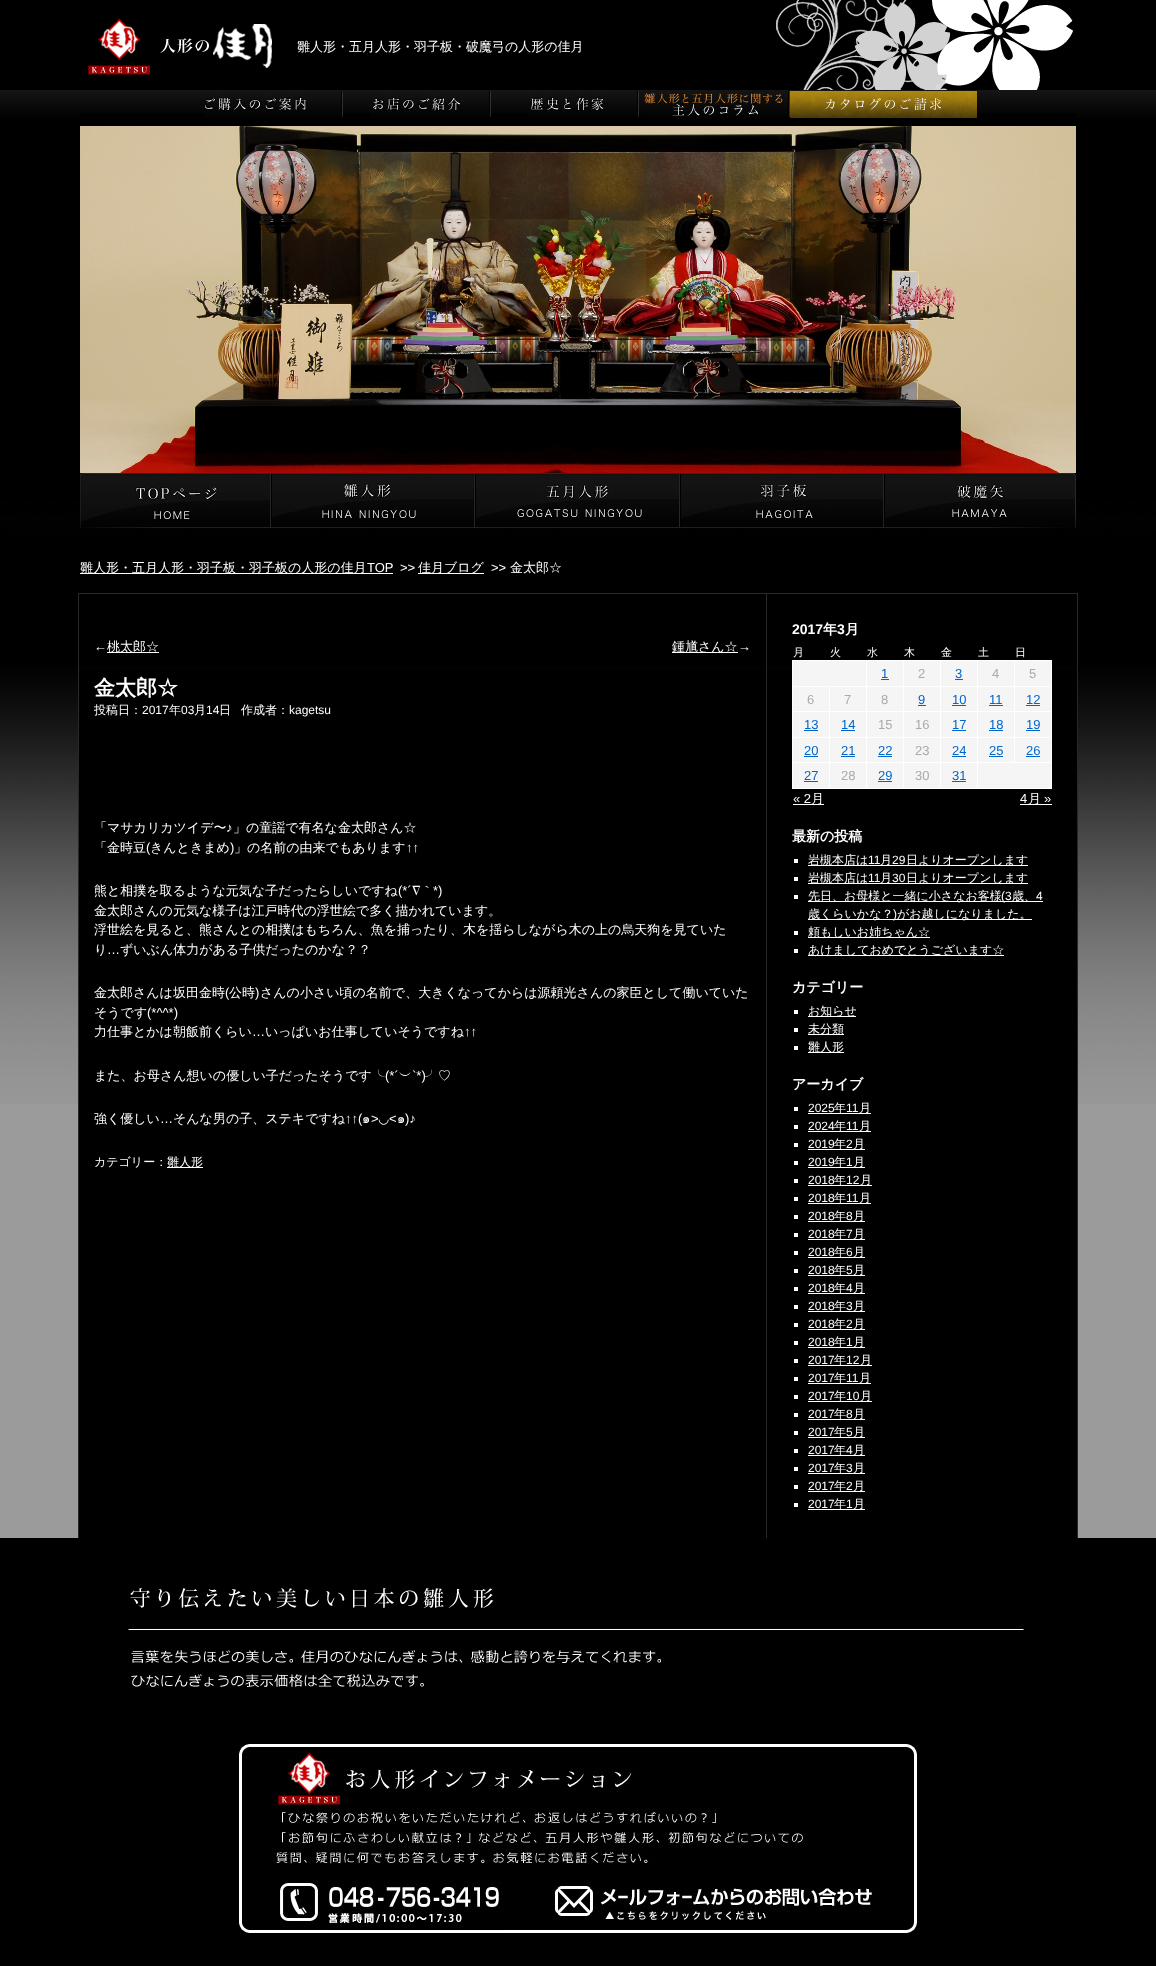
<svg xmlns="http://www.w3.org/2000/svg" xmlns:xlink="http://www.w3.org/1999/xlink" width="1156" height="1966" viewBox="0 0 1156 1966">
<style>
.cls-1{font:500 13px WenQuanYi Zen Hei;fill:#ffffff}
.cls-2{font:13px Liberation Sans;fill:#ffffff}
.cls-3{font:bold 21px WenQuanYi Zen Hei;fill:#ffffff}
.cls-4{font:500 12px WenQuanYi Zen Hei;fill:#ffffff}
.cls-5{font:12px Liberation Sans;fill:#ffffff}
.cls-6{font:13px Loma;fill:#ffffff}
.cls-7{font:13px DejaVu Sans;fill:#ffffff}
.cls-8{font:bold 14px Liberation Sans;fill:#ffffff}
.cls-9{font:bold 14px WenQuanYi Zen Hei;fill:#ffffff}
.cls-10{font:500 11px WenQuanYi Zen Hei;fill:#ffffff}
.cls-11{font:13px Liberation Sans;fill:#0066cc}
.cls-12{font:13px Liberation Sans;fill:#aaaaaa}
</style>
<rect width="100%" height="100%" fill="#9b9b9b"/>
<image xlink:href="image0.png" x="0" y="0" width="1156" height="1104"/>
<rect fill="#000000" x="80" y="113" width="996" height="4"/>
<image xlink:href="image1.png" x="80" y="0" width="996" height="113"/>
<image xlink:href="image2.png" x="88" y="18" width="184" height="57"/>
<image xlink:href="image3.png" x="204" y="91" width="139" height="26"/>
<image xlink:href="image4.png" x="370" y="91" width="121" height="26"/>
<image xlink:href="image5.png" x="528" y="91" width="111" height="26"/>
<image xlink:href="image6.png" x="641" y="91" width="149" height="26"/>
<image xlink:href="image7.png" x="790" y="91" width="187" height="27"/>
<image xlink:href="image8.png" x="80" y="126" width="996" height="347"/>
<image xlink:href="image9.png" x="80" y="473" width="191" height="55"/>
<image xlink:href="image10.png" x="81" y="474" width="190" height="54"/>
<image xlink:href="image11.png" x="271" y="473" width="204" height="1"/>
<image xlink:href="image12.png" x="271" y="474" width="204" height="54"/>
<image xlink:href="image13.png" x="475" y="473" width="205" height="1"/>
<image xlink:href="image14.png" x="475" y="474" width="205" height="54"/>
<image xlink:href="image15.png" x="680" y="473" width="204" height="1"/>
<image xlink:href="image16.png" x="680" y="474" width="204" height="54"/>
<image xlink:href="image17.png" x="884" y="473" width="192" height="55"/>
<image xlink:href="image18.png" x="884" y="474" width="191" height="54"/>
<rect fill="#ffffff" x="80" y="573" width="313" height="1"/>
<rect fill="#ffffff" x="418" y="573" width="66" height="1"/>
<rect fill="#000000" x="79" y="671" width="998" height="867"/>
<rect fill="#292929" x="78" y="593" width="1000" height="1"/>
<rect fill="#292929" x="1077" y="593" width="1" height="945"/>
<rect fill="#292929" x="78" y="593" width="1" height="945"/>
<rect fill="#ffffff" x="107" y="652" width="52" height="1"/>
<rect fill="#ffffff" x="672" y="652" width="66" height="1"/>
<rect fill="#ffffff" x="167" y="1167" width="36" height="1"/>
<rect fill="#292929" x="766" y="594" width="1" height="944"/>
<rect fill="#f5f5f5" x="793" y="661" width="73" height="25"/>
<rect fill="#ffffff" x="1014" y="660" width="38" height="1"/>
<rect fill="#ffffff" x="1014" y="686" width="38" height="1"/>
<rect fill="#ffffff" x="1014" y="711" width="38" height="1"/>
<rect fill="#ffffff" x="1014" y="737" width="38" height="1"/>
<rect fill="#ffffff" x="977" y="762" width="75" height="1"/>
<rect fill="#ffffff" x="1014" y="737" width="1" height="26"/>
<rect fill="#ffffff" x="977" y="737" width="38" height="1"/>
<rect fill="#ffffff" x="1014" y="711" width="1" height="27"/>
<rect fill="#ffffff" x="977" y="711" width="38" height="1"/>
<rect fill="#ffffff" x="1014" y="686" width="1" height="26"/>
<rect fill="#ffffff" x="977" y="686" width="38" height="1"/>
<rect fill="#ffffff" x="1014" y="660" width="1" height="27"/>
<rect fill="#ffffff" x="977" y="660" width="38" height="1"/>
<rect fill="#ffffff" x="1051" y="762" width="1" height="27"/>
<rect fill="#ffffff" x="977" y="788" width="75" height="1"/>
<rect fill="#ffffff" x="977" y="762" width="1" height="27"/>
<rect fill="#ffffff" x="940" y="762" width="38" height="1"/>
<rect fill="#ffffff" x="977" y="737" width="1" height="26"/>
<rect fill="#ffffff" x="940" y="737" width="38" height="1"/>
<rect fill="#ffffff" x="977" y="711" width="1" height="27"/>
<rect fill="#ffffff" x="940" y="711" width="38" height="1"/>
<rect fill="#ffffff" x="977" y="686" width="1" height="26"/>
<rect fill="#ffffff" x="940" y="686" width="38" height="1"/>
<rect fill="#ffffff" x="977" y="660" width="1" height="27"/>
<rect fill="#ffffff" x="940" y="660" width="38" height="1"/>
<rect fill="#ffffff" x="940" y="788" width="38" height="1"/>
<rect fill="#ffffff" x="940" y="762" width="1" height="27"/>
<rect fill="#ffffff" x="903" y="762" width="38" height="1"/>
<rect fill="#ffffff" x="940" y="737" width="1" height="26"/>
<rect fill="#ffffff" x="903" y="737" width="38" height="1"/>
<rect fill="#ffffff" x="940" y="711" width="1" height="27"/>
<rect fill="#ffffff" x="903" y="711" width="38" height="1"/>
<rect fill="#ffffff" x="940" y="686" width="1" height="26"/>
<rect fill="#ffffff" x="903" y="686" width="38" height="1"/>
<rect fill="#ffffff" x="940" y="660" width="1" height="27"/>
<rect fill="#ffffff" x="903" y="660" width="38" height="1"/>
<rect fill="#ffffff" x="903" y="788" width="38" height="1"/>
<rect fill="#ffffff" x="903" y="762" width="1" height="27"/>
<rect fill="#ffffff" x="866" y="762" width="38" height="1"/>
<rect fill="#ffffff" x="903" y="737" width="1" height="26"/>
<rect fill="#ffffff" x="866" y="737" width="38" height="1"/>
<rect fill="#ffffff" x="903" y="711" width="1" height="27"/>
<rect fill="#ffffff" x="866" y="711" width="38" height="1"/>
<rect fill="#ffffff" x="903" y="686" width="1" height="26"/>
<rect fill="#ffffff" x="866" y="686" width="38" height="1"/>
<rect fill="#ffffff" x="903" y="660" width="1" height="27"/>
<rect fill="#ffffff" x="866" y="660" width="38" height="1"/>
<rect fill="#ffffff" x="866" y="788" width="38" height="1"/>
<rect fill="#ffffff" x="866" y="762" width="1" height="27"/>
<rect fill="#ffffff" x="829" y="762" width="38" height="1"/>
<rect fill="#ffffff" x="866" y="737" width="1" height="26"/>
<rect fill="#ffffff" x="829" y="737" width="38" height="1"/>
<rect fill="#ffffff" x="866" y="711" width="1" height="27"/>
<rect fill="#ffffff" x="829" y="711" width="38" height="1"/>
<rect fill="#ffffff" x="866" y="686" width="1" height="26"/>
<rect fill="#ffffff" x="829" y="686" width="38" height="1"/>
<rect fill="#ffffff" x="866" y="660" width="1" height="27"/>
<rect fill="#ffffff" x="792" y="660" width="75" height="1"/>
<rect fill="#ffffff" x="829" y="788" width="38" height="1"/>
<rect fill="#ffffff" x="829" y="762" width="1" height="27"/>
<rect fill="#ffffff" x="792" y="762" width="38" height="1"/>
<rect fill="#ffffff" x="829" y="737" width="1" height="26"/>
<rect fill="#ffffff" x="792" y="737" width="38" height="1"/>
<rect fill="#ffffff" x="829" y="711" width="1" height="27"/>
<rect fill="#ffffff" x="792" y="711" width="38" height="1"/>
<rect fill="#ffffff" x="829" y="686" width="1" height="26"/>
<rect fill="#ffffff" x="792" y="686" width="38" height="1"/>
<rect fill="#ffffff" x="792" y="788" width="38" height="1"/>
<rect fill="#ffffff" x="792" y="762" width="1" height="27"/>
<rect fill="#ffffff" x="792" y="737" width="1" height="26"/>
<rect fill="#ffffff" x="792" y="711" width="1" height="27"/>
<rect fill="#ffffff" x="792" y="686" width="1" height="26"/>
<rect fill="#ffffff" x="792" y="660" width="1" height="27"/>
<rect fill="#f5f5f5" x="867" y="661" width="36" height="25"/>
<rect fill="#0066cc" x="881" y="679" width="8" height="1"/>
<rect fill="#f5f5f5" x="904" y="661" width="36" height="25"/>
<rect fill="#f5f5f5" x="941" y="661" width="36" height="25"/>
<rect fill="#0066cc" x="955" y="679" width="8" height="1"/>
<rect fill="#f5f5f5" x="978" y="661" width="36" height="25"/>
<rect fill="#f5f5f5" x="1015" y="661" width="36" height="25"/>
<rect fill="#ffffff" x="1051" y="737" width="1" height="26"/>
<rect fill="#ffffff" x="1051" y="711" width="1" height="27"/>
<rect fill="#ffffff" x="1051" y="686" width="1" height="26"/>
<rect fill="#ffffff" x="1051" y="660" width="1" height="27"/>
<rect fill="#f5f5f5" x="793" y="687" width="36" height="24"/>
<rect fill="#f5f5f5" x="830" y="687" width="36" height="24"/>
<rect fill="#f5f5f5" x="867" y="687" width="36" height="24"/>
<rect fill="#f5f5f5" x="904" y="687" width="36" height="24"/>
<rect fill="#0066cc" x="918" y="705" width="8" height="1"/>
<rect fill="#f5f5f5" x="941" y="687" width="36" height="24"/>
<rect fill="#0066cc" x="952" y="705" width="14" height="1"/>
<rect fill="#f5f5f5" x="978" y="687" width="36" height="24"/>
<rect fill="#0066cc" x="989" y="705" width="14" height="1"/>
<rect fill="#f5f5f5" x="1015" y="687" width="36" height="24"/>
<rect fill="#0066cc" x="1026" y="705" width="14" height="1"/>
<rect fill="#f5f5f5" x="793" y="712" width="36" height="25"/>
<rect fill="#0066cc" x="804" y="730" width="14" height="1"/>
<rect fill="#f5f5f5" x="830" y="712" width="36" height="25"/>
<rect fill="#0066cc" x="841" y="730" width="14" height="1"/>
<rect fill="#f5f5f5" x="867" y="712" width="36" height="25"/>
<rect fill="#f5f5f5" x="904" y="712" width="36" height="25"/>
<rect fill="#f5f5f5" x="941" y="712" width="36" height="25"/>
<rect fill="#0066cc" x="952" y="730" width="14" height="1"/>
<rect fill="#f5f5f5" x="978" y="712" width="36" height="25"/>
<rect fill="#0066cc" x="989" y="730" width="14" height="1"/>
<rect fill="#f5f5f5" x="1015" y="712" width="36" height="25"/>
<rect fill="#0066cc" x="1026" y="730" width="14" height="1"/>
<rect fill="#f5f5f5" x="793" y="738" width="36" height="24"/>
<rect fill="#0066cc" x="804" y="756" width="14" height="1"/>
<rect fill="#f5f5f5" x="830" y="738" width="36" height="24"/>
<rect fill="#0066cc" x="841" y="756" width="14" height="1"/>
<rect fill="#f5f5f5" x="867" y="738" width="36" height="24"/>
<rect fill="#0066cc" x="878" y="756" width="14" height="1"/>
<rect fill="#f5f5f5" x="904" y="738" width="36" height="24"/>
<rect fill="#f5f5f5" x="941" y="738" width="36" height="24"/>
<rect fill="#0066cc" x="952" y="756" width="14" height="1"/>
<rect fill="#f5f5f5" x="978" y="738" width="36" height="24"/>
<rect fill="#0066cc" x="989" y="756" width="14" height="1"/>
<rect fill="#f5f5f5" x="1015" y="738" width="36" height="24"/>
<rect fill="#0066cc" x="1026" y="756" width="14" height="1"/>
<rect fill="#f5f5f5" x="793" y="763" width="36" height="25"/>
<rect fill="#0066cc" x="804" y="781" width="14" height="1"/>
<rect fill="#f5f5f5" x="830" y="763" width="36" height="25"/>
<rect fill="#f5f5f5" x="867" y="763" width="36" height="25"/>
<rect fill="#0066cc" x="878" y="781" width="14" height="1"/>
<rect fill="#f5f5f5" x="904" y="763" width="36" height="25"/>
<rect fill="#f5f5f5" x="941" y="763" width="36" height="25"/>
<rect fill="#0066cc" x="952" y="781" width="14" height="1"/>
<rect fill="#f5f5f5" x="978" y="763" width="73" height="25"/>
<rect fill="#ffffff" x="793" y="804" width="31" height="1"/>
<rect fill="#ffffff" x="1020" y="804" width="32" height="1"/>
<rect fill="#ffffff" x="794" y="859" width="4" height="4"/>
<rect fill="#ffffff" x="808" y="865" width="220" height="1"/>
<rect fill="#ffffff" x="794" y="877" width="4" height="4"/>
<rect fill="#ffffff" x="808" y="883" width="220" height="1"/>
<rect fill="#ffffff" x="794" y="895" width="4" height="4"/>
<rect fill="#ffffff" x="808" y="901" width="235" height="1"/>
<rect fill="#ffffff" x="808" y="919" width="224" height="1"/>
<rect fill="#ffffff" x="794" y="931" width="4" height="4"/>
<rect fill="#ffffff" x="808" y="937" width="122" height="1"/>
<rect fill="#ffffff" x="794" y="949" width="4" height="4"/>
<rect fill="#ffffff" x="808" y="955" width="196" height="1"/>
<rect fill="#ffffff" x="794" y="1010" width="4" height="4"/>
<rect fill="#ffffff" x="808" y="1016" width="48" height="1"/>
<rect fill="#ffffff" x="794" y="1028" width="4" height="4"/>
<rect fill="#ffffff" x="808" y="1034" width="36" height="1"/>
<rect fill="#ffffff" x="794" y="1046" width="4" height="4"/>
<rect fill="#ffffff" x="808" y="1052" width="36" height="1"/>
<rect fill="#ffffff" x="794" y="1107" width="4" height="4"/>
<rect fill="#ffffff" x="808" y="1113" width="63" height="1"/>
<rect fill="#ffffff" x="794" y="1125" width="4" height="4"/>
<rect fill="#ffffff" x="808" y="1131" width="63" height="1"/>
<rect fill="#ffffff" x="794" y="1143" width="4" height="4"/>
<rect fill="#ffffff" x="808" y="1149" width="57" height="1"/>
<rect fill="#ffffff" x="794" y="1161" width="4" height="4"/>
<rect fill="#ffffff" x="808" y="1167" width="57" height="1"/>
<rect fill="#ffffff" x="794" y="1179" width="4" height="4"/>
<rect fill="#ffffff" x="808" y="1185" width="64" height="1"/>
<rect fill="#ffffff" x="794" y="1197" width="4" height="4"/>
<rect fill="#ffffff" x="808" y="1203" width="63" height="1"/>
<rect fill="#ffffff" x="794" y="1215" width="4" height="4"/>
<rect fill="#ffffff" x="808" y="1221" width="57" height="1"/>
<rect fill="#ffffff" x="794" y="1233" width="4" height="4"/>
<rect fill="#ffffff" x="808" y="1239" width="57" height="1"/>
<rect fill="#ffffff" x="794" y="1251" width="4" height="4"/>
<rect fill="#ffffff" x="808" y="1257" width="57" height="1"/>
<rect fill="#ffffff" x="794" y="1269" width="4" height="4"/>
<rect fill="#ffffff" x="808" y="1275" width="57" height="1"/>
<rect fill="#ffffff" x="794" y="1287" width="4" height="4"/>
<rect fill="#ffffff" x="808" y="1293" width="57" height="1"/>
<rect fill="#ffffff" x="794" y="1305" width="4" height="4"/>
<rect fill="#ffffff" x="808" y="1311" width="57" height="1"/>
<rect fill="#ffffff" x="794" y="1323" width="4" height="4"/>
<rect fill="#ffffff" x="808" y="1329" width="57" height="1"/>
<rect fill="#ffffff" x="794" y="1341" width="4" height="4"/>
<rect fill="#ffffff" x="808" y="1347" width="57" height="1"/>
<rect fill="#ffffff" x="794" y="1359" width="4" height="4"/>
<rect fill="#ffffff" x="808" y="1365" width="64" height="1"/>
<rect fill="#ffffff" x="794" y="1377" width="4" height="4"/>
<rect fill="#ffffff" x="808" y="1383" width="63" height="1"/>
<rect fill="#ffffff" x="794" y="1395" width="4" height="4"/>
<rect fill="#ffffff" x="808" y="1401" width="64" height="1"/>
<rect fill="#ffffff" x="794" y="1413" width="4" height="4"/>
<rect fill="#ffffff" x="808" y="1419" width="57" height="1"/>
<rect fill="#ffffff" x="794" y="1431" width="4" height="4"/>
<rect fill="#ffffff" x="808" y="1437" width="57" height="1"/>
<rect fill="#ffffff" x="794" y="1449" width="4" height="4"/>
<rect fill="#ffffff" x="808" y="1455" width="57" height="1"/>
<rect fill="#ffffff" x="794" y="1467" width="4" height="4"/>
<rect fill="#ffffff" x="808" y="1473" width="57" height="1"/>
<rect fill="#ffffff" x="794" y="1485" width="4" height="4"/>
<rect fill="#ffffff" x="808" y="1491" width="57" height="1"/>
<rect fill="#ffffff" x="794" y="1503" width="4" height="4"/>
<rect fill="#ffffff" x="808" y="1509" width="57" height="1"/>
<rect fill="#000000" x="0" y="1538" width="1156" height="428"/>
<image xlink:href="image19.png" x="128" y="1588" width="896" height="99"/>
<image xlink:href="image20.png" x="239" y="1744" width="678" height="189"/>
<text class="cls-1" x="297" y="51">雛人形・五月人形・羽子板・破魔弓の人形の佳月</text>
<text class="cls-1" x="80" y="572">雛人形・五月人形・羽子板・羽子板の人形の佳月</text>
<text class="cls-2" x="367" y="572">TOP</text>
<text class="cls-2" x="400" y="572">&gt;&gt;</text>
<text class="cls-1" x="418" y="572">佳月ブログ</text>
<text class="cls-2" x="491" y="572">&gt;&gt;</text>
<text class="cls-1" x="510" y="572">金太郎☆</text>
<text class="cls-2" x="94" y="651">←</text>
<text class="cls-1" x="107" y="651">桃太郎☆</text>
<text class="cls-1" x="672" y="651">鍾馗さん☆</text>
<text class="cls-2" x="738" y="651">→</text>
<text class="cls-3" x="94" y="695">金太郎☆</text>
<text class="cls-4" x="94" y="714">投稿日：</text>
<text class="cls-5" x="142" y="714">2017</text>
<text class="cls-4" x="169" y="714">年</text>
<text class="cls-5" x="181" y="714">03</text>
<text class="cls-4" x="194" y="714">月</text>
<text class="cls-5" x="206" y="714">14</text>
<text class="cls-4" x="219" y="714">日</text>
<text class="cls-4" x="241" y="714">作成者：</text>
<text class="cls-5" x="289" y="714">kagetsu</text>
<text class="cls-1" x="94" y="832">「マサカリカツイデ〜</text>
<text class="cls-2" x="226" y="832">♪</text>
<text class="cls-1" x="233" y="832">」の童謡で有名な金太郎さん☆</text>
<text class="cls-1" x="94" y="852">「金時豆</text>
<text class="cls-2" x="146" y="852">(</text>
<text class="cls-1" x="150" y="852">きんときまめ</text>
<text class="cls-2" x="230" y="852">)</text>
<text class="cls-1" x="234" y="852">」の名前の由来でもあります</text>
<text class="cls-2" x="406" y="852">↑↑</text>
<text class="cls-1" x="94" y="895">熊と相撲を取るような元気な子だったらしいですね</text>
<text class="cls-2" x="398" y="895">(*´</text>
<text class="cls-1" x="412" y="895">∇｀</text>
<text class="cls-2" x="433" y="895">*)</text>
<text class="cls-1"><tspan x="94" y="915">金太郎さんの元気な様子は江戸時代の浮世絵で多く描かれています。</tspan><tspan x="94" y="934">浮世絵を見ると、熊さんとの相撲はもちろん、魚を捕ったり、木を揺らしながら木の上の烏天狗を見ていた</tspan><tspan x="94" y="954">り</tspan></text>
<text class="cls-2" x="107" y="954">…</text>
<text class="cls-1" x="120" y="954">ずいぶん体力がある子供だったのかな？？</text>
<text class="cls-1" x="94" y="997">金太郎さんは坂田金時</text>
<text class="cls-2" x="225" y="997">(</text>
<text class="cls-1" x="229" y="997">公時</text>
<text class="cls-2" x="255" y="997">)</text>
<text class="cls-1" x="260" y="997">さんの小さい頃の名前で、大きくなってからは源頼光さんの家臣として働いていた</text>
<text class="cls-1" x="94" y="1017">そうです</text>
<text class="cls-2" x="147" y="1017">(*^^*)</text>
<text class="cls-1" x="94" y="1036">力仕事とかは朝飯前くらい</text>
<text class="cls-2" x="252" y="1036">…</text>
<text class="cls-1" x="265" y="1036">いっぱいお仕事していそうですね</text>
<text class="cls-2" x="464" y="1036">↑↑</text>
<text class="cls-1" x="94" y="1080">また、お母さん想いの優しい子だったそうです╰</text>
<text class="cls-2" x="385" y="1080">(*´</text>
<text class="cls-1" x="399" y="1080">︶</text>
<text class="cls-2" x="412" y="1080">`*)</text>
<text class="cls-1" x="425" y="1080">╯♡</text>
<text class="cls-1" x="94" y="1123">強く優しい</text>
<text class="cls-2" x="160" y="1123">…</text>
<text class="cls-1" x="173" y="1123">そんな男の子、ステキですね</text>
<text class="cls-2" x="345" y="1123">↑↑(</text>
<text class="cls-6" x="362" y="1123">๑</text>
<text class="cls-2" x="371" y="1123">&gt;</text>
<text class="cls-7" x="378" y="1123">◡</text>
<text class="cls-2" x="389" y="1123">&lt;</text>
<text class="cls-6" x="397" y="1123">๑</text>
<text class="cls-2" x="405" y="1123">)♪</text>
<text class="cls-4" x="94" y="1166">カテゴリー：</text>
<text class="cls-4" x="167" y="1166">雛人形</text>
<text class="cls-8" x="792" y="634">2017</text>
<text class="cls-9" x="823" y="634">年</text>
<text class="cls-8" x="837" y="634">3</text>
<text class="cls-9" x="845" y="634">月</text>
<text class="cls-10" x="793" y="656">月</text>
<text class="cls-10" x="830" y="656">火</text>
<text class="cls-10" x="867" y="656">水</text>
<text class="cls-10" x="904" y="656">木</text>
<text class="cls-10" x="941" y="656">金</text>
<text class="cls-10" x="978" y="656">土</text>
<text class="cls-10" x="1015" y="656">日</text>
<text class="cls-11" x="881" y="678">1</text>
<text class="cls-12" x="918" y="678">2</text>
<text class="cls-11" x="955" y="678">3</text>
<text class="cls-12" x="992" y="678">4</text>
<text class="cls-12" x="1029" y="678">5</text>
<text class="cls-12" x="807" y="704">6</text>
<text class="cls-12" x="844" y="704">7</text>
<text class="cls-12" x="881" y="704">8</text>
<text class="cls-11" x="918" y="704">9</text>
<text class="cls-11" x="952" y="704">10</text>
<text class="cls-11" x="989" y="704">11</text>
<text class="cls-11" x="1026" y="704">12</text>
<text class="cls-11" x="804" y="729">13</text>
<text class="cls-11" x="841" y="729">14</text>
<text class="cls-12" x="878" y="729">15</text>
<text class="cls-12" x="915" y="729">16</text>
<text class="cls-11" x="952" y="729">17</text>
<text class="cls-11" x="989" y="729">18</text>
<text class="cls-11" x="1026" y="729">19</text>
<text class="cls-11" x="804" y="755">20</text>
<text class="cls-11" x="841" y="755">21</text>
<text class="cls-11" x="878" y="755">22</text>
<text class="cls-12" x="915" y="755">23</text>
<text class="cls-11" x="952" y="755">24</text>
<text class="cls-11" x="989" y="755">25</text>
<text class="cls-11" x="1026" y="755">26</text>
<text class="cls-11" x="804" y="780">27</text>
<text class="cls-12" x="841" y="780">28</text>
<text class="cls-11" x="878" y="780">29</text>
<text class="cls-12" x="915" y="780">30</text>
<text class="cls-11" x="952" y="780">31</text>
<text class="cls-2" x="793" y="803">« 2</text>
<text class="cls-1" x="811" y="803">月</text>
<text class="cls-2" x="1020" y="803">4</text>
<text class="cls-1" x="1028" y="803">月</text>
<text class="cls-2" x="1044" y="803">»</text>
<text class="cls-9" x="792" y="841">最新の投稿</text>
<text class="cls-4" x="808" y="864">岩槻本店は</text>
<text class="cls-5" x="868" y="864">11</text>
<text class="cls-4" x="880" y="864">月</text>
<text class="cls-5" x="892" y="864">29</text>
<text class="cls-4" x="906" y="864">日よりオープンします</text>
<text class="cls-4" x="808" y="882">岩槻本店は</text>
<text class="cls-5" x="868" y="882">11</text>
<text class="cls-4" x="880" y="882">月</text>
<text class="cls-5" x="892" y="882">30</text>
<text class="cls-4" x="906" y="882">日よりオープンします</text>
<text class="cls-4" x="808" y="900">先日、お母様と一緒に小さなお客様</text>
<text class="cls-5" x="1001" y="900">(3</text>
<text class="cls-4" x="1012" y="900">歳、</text>
<text class="cls-5" x="1036" y="900">4</text>
<text class="cls-4" x="808" y="918">歳くらいかな？</text>
<text class="cls-5" x="893" y="918">)</text>
<text class="cls-4" x="897" y="918">がお越しになりました。</text>
<text class="cls-4"><tspan x="808" y="936">頼もしいお姉ちゃん☆</tspan><tspan x="808" y="954">あけましておめでとうございます☆</tspan></text>
<text class="cls-9" x="792" y="992">カテゴリー</text>
<text class="cls-4"><tspan x="808" y="1015">お知らせ</tspan><tspan x="808" y="1033">未分類</tspan><tspan x="808" y="1051">雛人形</tspan></text>
<text class="cls-9" x="792" y="1089">アーカイブ</text>
<text class="cls-5" x="808" y="1112">2025</text>
<text class="cls-4" x="834" y="1112">年</text>
<text class="cls-5" x="846" y="1112">11</text>
<text class="cls-4" x="859" y="1112">月</text>
<text class="cls-5" x="808" y="1130">2024</text>
<text class="cls-4" x="834" y="1130">年</text>
<text class="cls-5" x="846" y="1130">11</text>
<text class="cls-4" x="859" y="1130">月</text>
<text class="cls-5" x="808" y="1148">2019</text>
<text class="cls-4" x="834" y="1148">年</text>
<text class="cls-5" x="846" y="1148">2</text>
<text class="cls-4" x="853" y="1148">月</text>
<text class="cls-5" x="808" y="1166">2019</text>
<text class="cls-4" x="834" y="1166">年</text>
<text class="cls-5" x="846" y="1166">1</text>
<text class="cls-4" x="853" y="1166">月</text>
<text class="cls-5" x="808" y="1184">2018</text>
<text class="cls-4" x="834" y="1184">年</text>
<text class="cls-5" x="846" y="1184">12</text>
<text class="cls-4" x="860" y="1184">月</text>
<text class="cls-5" x="808" y="1202">2018</text>
<text class="cls-4" x="834" y="1202">年</text>
<text class="cls-5" x="846" y="1202">11</text>
<text class="cls-4" x="859" y="1202">月</text>
<text class="cls-5" x="808" y="1220">2018</text>
<text class="cls-4" x="834" y="1220">年</text>
<text class="cls-5" x="846" y="1220">8</text>
<text class="cls-4" x="853" y="1220">月</text>
<text class="cls-5" x="808" y="1238">2018</text>
<text class="cls-4" x="834" y="1238">年</text>
<text class="cls-5" x="846" y="1238">7</text>
<text class="cls-4" x="853" y="1238">月</text>
<text class="cls-5" x="808" y="1256">2018</text>
<text class="cls-4" x="834" y="1256">年</text>
<text class="cls-5" x="846" y="1256">6</text>
<text class="cls-4" x="853" y="1256">月</text>
<text class="cls-5" x="808" y="1274">2018</text>
<text class="cls-4" x="834" y="1274">年</text>
<text class="cls-5" x="846" y="1274">5</text>
<text class="cls-4" x="853" y="1274">月</text>
<text class="cls-5" x="808" y="1292">2018</text>
<text class="cls-4" x="834" y="1292">年</text>
<text class="cls-5" x="846" y="1292">4</text>
<text class="cls-4" x="853" y="1292">月</text>
<text class="cls-5" x="808" y="1310">2018</text>
<text class="cls-4" x="834" y="1310">年</text>
<text class="cls-5" x="846" y="1310">3</text>
<text class="cls-4" x="853" y="1310">月</text>
<text class="cls-5" x="808" y="1328">2018</text>
<text class="cls-4" x="834" y="1328">年</text>
<text class="cls-5" x="846" y="1328">2</text>
<text class="cls-4" x="853" y="1328">月</text>
<text class="cls-5" x="808" y="1346">2018</text>
<text class="cls-4" x="834" y="1346">年</text>
<text class="cls-5" x="846" y="1346">1</text>
<text class="cls-4" x="853" y="1346">月</text>
<text class="cls-5" x="808" y="1364">2017</text>
<text class="cls-4" x="834" y="1364">年</text>
<text class="cls-5" x="846" y="1364">12</text>
<text class="cls-4" x="860" y="1364">月</text>
<text class="cls-5" x="808" y="1382">2017</text>
<text class="cls-4" x="834" y="1382">年</text>
<text class="cls-5" x="846" y="1382">11</text>
<text class="cls-4" x="859" y="1382">月</text>
<text class="cls-5" x="808" y="1400">2017</text>
<text class="cls-4" x="834" y="1400">年</text>
<text class="cls-5" x="846" y="1400">10</text>
<text class="cls-4" x="860" y="1400">月</text>
<text class="cls-5" x="808" y="1418">2017</text>
<text class="cls-4" x="834" y="1418">年</text>
<text class="cls-5" x="846" y="1418">8</text>
<text class="cls-4" x="853" y="1418">月</text>
<text class="cls-5" x="808" y="1436">2017</text>
<text class="cls-4" x="834" y="1436">年</text>
<text class="cls-5" x="846" y="1436">5</text>
<text class="cls-4" x="853" y="1436">月</text>
<text class="cls-5" x="808" y="1454">2017</text>
<text class="cls-4" x="834" y="1454">年</text>
<text class="cls-5" x="846" y="1454">4</text>
<text class="cls-4" x="853" y="1454">月</text>
<text class="cls-5" x="808" y="1472">2017</text>
<text class="cls-4" x="834" y="1472">年</text>
<text class="cls-5" x="846" y="1472">3</text>
<text class="cls-4" x="853" y="1472">月</text>
<text class="cls-5" x="808" y="1490">2017</text>
<text class="cls-4" x="834" y="1490">年</text>
<text class="cls-5" x="846" y="1490">2</text>
<text class="cls-4" x="853" y="1490">月</text>
<text class="cls-5" x="808" y="1508">2017</text>
<text class="cls-4" x="834" y="1508">年</text>
<text class="cls-5" x="846" y="1508">1</text>
<text class="cls-4" x="853" y="1508">月</text>
</svg>
